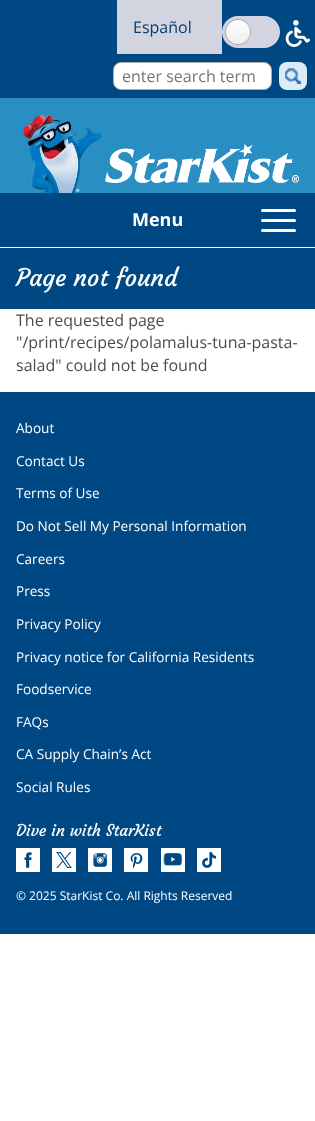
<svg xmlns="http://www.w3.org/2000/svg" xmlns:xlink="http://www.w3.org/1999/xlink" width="315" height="1121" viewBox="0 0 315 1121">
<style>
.cls-1{font:16px Open Sans;fill:#053d6c}
.cls-2{font:16px Open Sans;fill:#757575}
.cls-3{font:bold 18px Open Sans;fill:#ffffff}
.cls-4{font:24px Courgette;fill:#ffffff}
.cls-5{font:16px Open Sans;fill:#4c4c4c}
.cls-6{font:13.6px Open Sans;fill:#ffffff}
.cls-7{font:16px Courgette;fill:#ffffff}
.cls-8{font:12px Open Sans;fill:#ffffff}
</style>
<defs>
<linearGradient id="g1" gradientUnits="userSpaceOnUse" x1="238" y1="20" x2="238" y2="44"><stop offset="0" stop-color="#ffffff"/><stop offset="1" stop-color="#eeeeee"/></linearGradient>
</defs>
<rect width="100%" height="100%" fill="#ffffff"/>
<rect fill="#298ec1" x="0" y="98" width="315" height="95"/>
<rect fill="#004884" x="0" y="0" width="315" height="98"/>
<rect fill="#d2d5e0" x="117" y="0" width="105" height="54"/>
<rect fill="#d2d5e0" x="222" y="16" width="58" height="32" rx="16"/>
<circle fill="none" stroke="#9ea0a8" cx="238" cy="32" r="12.5"/>
<circle fill="url(#g1)" cx="238" cy="32" r="12"/>
<image xlink:href="image0.png" x="285" y="20" width="26" height="27"/>
<rect fill="#ffffff" stroke="#aeaeae" x="113.5" y="62.5" width="158" height="27" rx="7.5"/>
<rect fill="#dcecf7" x="279" y="62" width="28" height="28" rx="8"/>
<image xlink:href="image1.png" x="285" y="68" width="16" height="16"/>
<image xlink:href="image2.png" x="23" y="114" width="79" height="79"/>
<image xlink:href="image3.png" x="105" y="144" width="194" height="39"/>
<rect fill="#004884" x="0" y="193" width="315" height="54"/>
<rect fill="#ffffff" x="261" y="219" width="35" height="3" rx="1.5"/>
<rect fill="#ffffff" x="261" y="209" width="35" height="3" rx="1.5"/>
<rect fill="#ffffff" x="261" y="229" width="35" height="3" rx="1.5"/>
<rect fill="#004884" x="0" y="248" width="315" height="61"/>
<rect fill="#004884" x="0" y="392" width="315" height="542"/>
<image xlink:href="image4.png" x="16" y="848" width="24" height="24"/>
<image xlink:href="image5.png" x="52" y="848" width="24" height="24"/>
<image xlink:href="image6.png" x="88" y="848" width="24" height="24"/>
<image xlink:href="image7.png" x="124" y="848" width="24" height="24"/>
<image xlink:href="image8.png" x="161" y="848" width="24" height="24"/>
<image xlink:href="image9.png" x="197" y="848" width="24" height="24"/>
<text class="cls-1" x="133" y="33">Español</text>
<text class="cls-2" x="122" y="82">enter search term</text>
<text class="cls-3" x="132" y="226">Menu</text>
<text class="cls-4" x="16" y="286">Page not found</text>
<text class="cls-5"><tspan x="16" y="326">The requested page</tspan><tspan x="16" y="348">"/print/recipes/polamalus-tuna-pasta-</tspan><tspan x="16" y="371">salad" could not be found</tspan></text>
<text class="cls-6" x="16" y="433">About</text>
<text class="cls-6" x="16" y="466">Contact Us</text>
<text class="cls-6" x="16" y="498">Terms of Use</text>
<text class="cls-6" x="16" y="531">Do Not Sell My Personal Information</text>
<text class="cls-6" x="16" y="564">Careers</text>
<text class="cls-6" x="16" y="596">Press</text>
<text class="cls-6" x="16" y="629">Privacy Policy</text>
<text class="cls-6" x="16" y="662">Privacy notice for California Residents</text>
<text class="cls-6" x="16" y="694">Foodservice</text>
<text class="cls-6" x="16" y="727">FAQs</text>
<text class="cls-6" x="16" y="759">CA Supply Chain’s Act</text>
<text class="cls-6" x="16" y="792">Social Rules</text>
<text class="cls-7" x="16" y="836">Dive in with StarKist</text>
<text class="cls-8" x="16" y="900">© 2025 StarKist Co. All Rights Reserved</text>
</svg>
